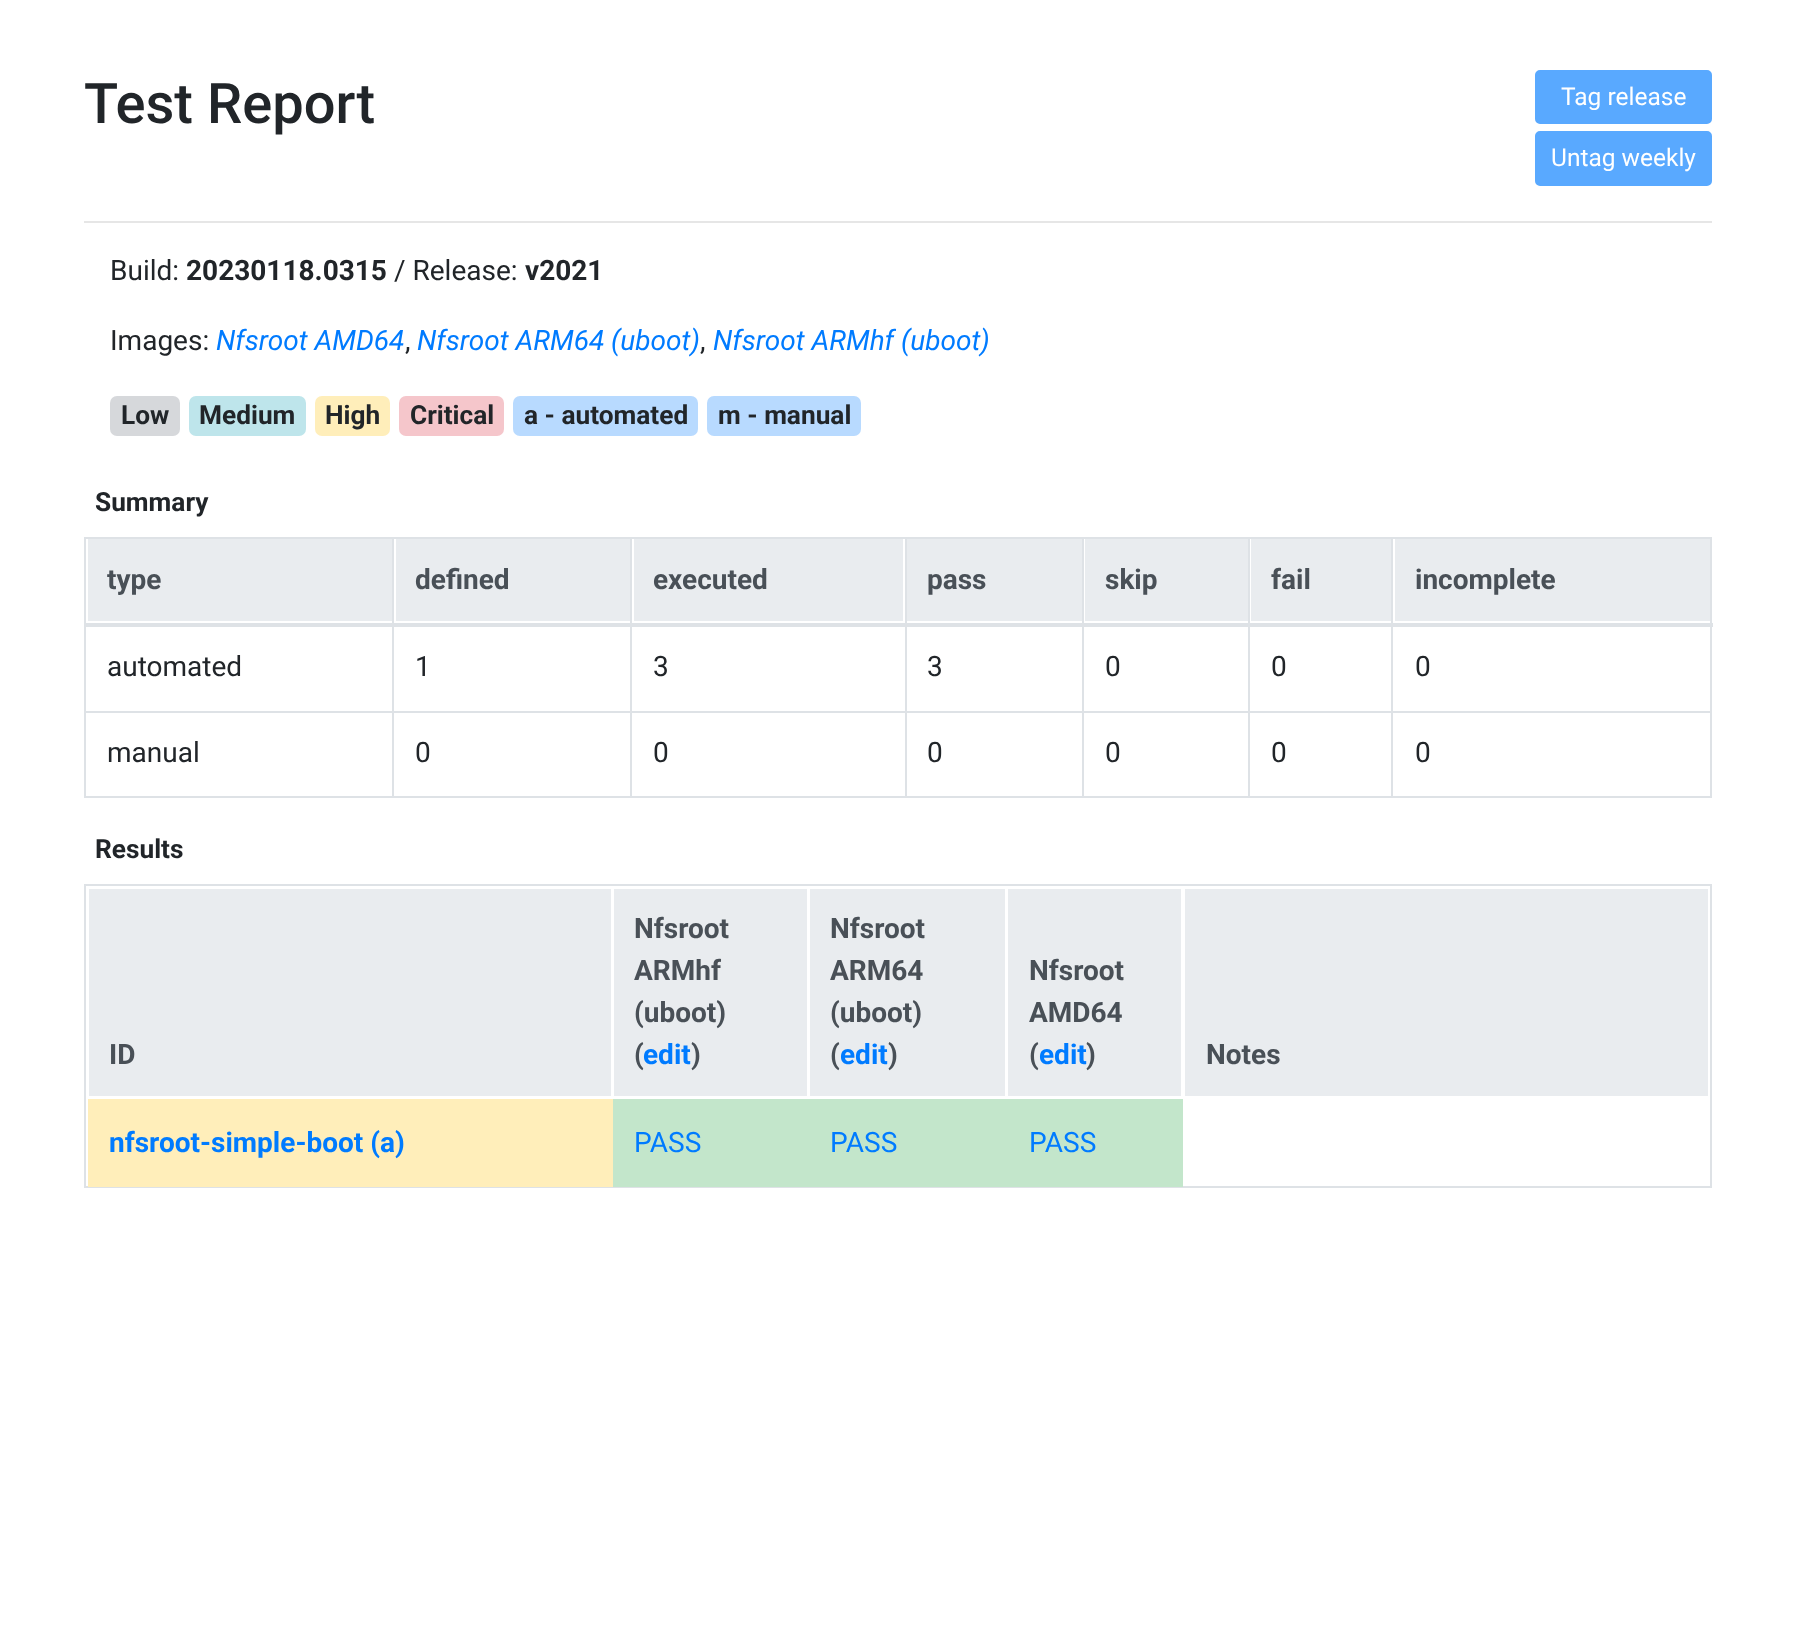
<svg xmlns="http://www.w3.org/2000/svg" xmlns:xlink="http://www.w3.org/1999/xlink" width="1795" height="1651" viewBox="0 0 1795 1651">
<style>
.cls-1{font:500 56px Roboto;fill:#212529}
.cls-2{font:24.5px Roboto;fill:#ffffff}
.cls-3{font:28px Roboto;fill:#212529}
.cls-4{font:bold 28px Roboto;fill:#212529}
.cls-5{font:italic 28px Roboto;fill:#007bff}
.cls-6{font:bold 26.25px Roboto;fill:#212529}
.cls-7{font:bold 28px Roboto;fill:#495057}
.cls-8{font:bold 28px Roboto;fill:#007bff}
.cls-9{font:28px Roboto;fill:#007bff}
</style>
<rect width="100%" height="100%" fill="#ffffff"/>
<rect fill="#59a9ff" stroke="#59a9ff" stroke-width="2" x="1536" y="71" width="175" height="52" rx="4"/>
<rect fill="#59a9ff" stroke="#59a9ff" stroke-width="2" x="1536" y="132" width="175" height="53" rx="4"/>
<rect fill="#e6e6e6" x="84" y="221" width="1628" height="2"/>
<rect fill="#d6d8db" x="110" y="396" width="70" height="40" rx="7"/>
<rect fill="#bee5eb" x="189" y="396" width="117" height="40" rx="7"/>
<rect fill="#ffeeba" x="315" y="396" width="75" height="40" rx="7"/>
<rect fill="#f5c6cb" x="399" y="396" width="105" height="40" rx="7"/>
<rect fill="#b8daff" x="513" y="396" width="185" height="40" rx="7"/>
<rect fill="#b8daff" x="707" y="396" width="154" height="40" rx="7"/>
<rect fill="#dee2e6" x="84" y="537" width="1628" height="2"/>
<rect fill="#dee2e6" x="1710" y="537" width="2" height="261"/>
<rect fill="#dee2e6" x="84" y="796" width="1628" height="2"/>
<rect fill="#dee2e6" x="84" y="537" width="2" height="261"/>
<rect fill="#e9ecef" x="88" y="539" width="304" height="82"/>
<rect fill="#e9ecef" x="396" y="539" width="234" height="82"/>
<rect fill="#e9ecef" x="634" y="539" width="269" height="82"/>
<rect fill="#e9ecef" x="907" y="539" width="175" height="82"/>
<rect fill="#e9ecef" x="1085" y="539" width="163" height="82"/>
<rect fill="#e9ecef" x="1251" y="539" width="140" height="82"/>
<rect fill="#e9ecef" x="1395" y="539" width="315" height="82"/>
<rect fill="#dee2e6" x="1391" y="711" width="321" height="2"/>
<rect fill="#dee2e6" x="1391" y="711" width="2" height="87"/>
<rect fill="#dee2e6" x="1248" y="711" width="145" height="2"/>
<rect fill="#dee2e6" x="1248" y="711" width="2" height="87"/>
<rect fill="#dee2e6" x="1082" y="711" width="168" height="2"/>
<rect fill="#dee2e6" x="1082" y="711" width="2" height="87"/>
<rect fill="#dee2e6" x="905" y="711" width="178" height="2"/>
<rect fill="#dee2e6" x="905" y="711" width="2" height="87"/>
<rect fill="#dee2e6" x="630" y="711" width="277" height="2"/>
<rect fill="#dee2e6" x="630" y="711" width="2" height="87"/>
<rect fill="#dee2e6" x="392" y="711" width="240" height="2"/>
<rect fill="#dee2e6" x="392" y="711" width="2" height="87"/>
<rect fill="#dee2e6" x="84" y="711" width="310" height="2"/>
<rect fill="#dee2e6" x="392" y="537" width="2" height="175"/>
<rect fill="#dee2e6" x="630" y="537" width="2" height="175"/>
<rect fill="#dee2e6" x="905" y="537" width="2" height="175"/>
<rect fill="#dee2e6" x="1082" y="537" width="2" height="175"/>
<rect fill="#dee2e6" x="1248" y="537" width="2" height="175"/>
<rect fill="#dee2e6" x="1391" y="537" width="2" height="175"/>
<rect fill="#dee2e6" x="84" y="623" width="1629" height="4"/>
<rect fill="none" stroke="#dee2e6" stroke-width="2" x="85" y="885" width="1626" height="302"/>
<rect fill="#e9ecef" x="89" y="889" width="522" height="207"/>
<rect fill="#e9ecef" x="614" y="889" width="193" height="207"/>
<rect fill="#e9ecef" x="810" y="889" width="195" height="207"/>
<rect fill="#e9ecef" x="1008" y="889" width="173" height="207"/>
<rect fill="#e9ecef" x="1185" y="889" width="523" height="207"/>
<rect fill="#ffeeba" x="88" y="1099" width="525" height="88"/>
<rect fill="#c3e6cb" x="613" y="1099" width="570" height="88"/>
<text class="cls-1" x="84" y="123">Test Report</text>
<text class="cls-2" x="1561" y="105">Tag release</text>
<text class="cls-2" x="1551" y="166">Untag weekly</text>
<text class="cls-3" x="110" y="280">Build:</text>
<text class="cls-4" x="186" y="280">20230118.0315</text>
<text class="cls-3" x="394" y="280">/ Release:</text>
<text class="cls-4" x="525" y="280">v2021</text>
<text class="cls-3" x="110" y="350">Images:</text>
<text class="cls-5" x="216" y="350">Nfsroot AMD64</text>
<text class="cls-3" x="405" y="350">,</text>
<text class="cls-5" x="417" y="350">Nfsroot ARM64 (uboot)</text>
<text class="cls-3" x="700" y="350">,</text>
<text class="cls-5" x="713" y="350">Nfsroot ARMhf (uboot)</text>
<text class="cls-6" x="121" y="424">Low</text>
<text class="cls-6" x="199" y="424">Medium</text>
<text class="cls-6" x="325" y="424">High</text>
<text class="cls-6" x="410" y="424">Critical</text>
<text class="cls-6" x="524" y="424">a - automated</text>
<text class="cls-6" x="718" y="424">m - manual</text>
<text class="cls-6" x="95" y="511">Summary</text>
<text class="cls-7" x="107" y="589">type</text>
<text class="cls-7" x="415" y="589">defined</text>
<text class="cls-7" x="653" y="589">executed</text>
<text class="cls-7" x="927" y="589">pass</text>
<text class="cls-7" x="1105" y="589">skip</text>
<text class="cls-7" x="1271" y="589">fail</text>
<text class="cls-7" x="1415" y="589">incomplete</text>
<text class="cls-3" x="107" y="676">automated</text>
<text class="cls-3" x="415" y="676">1</text>
<text class="cls-3" x="653" y="676">3</text>
<text class="cls-3" x="927" y="676">3</text>
<text class="cls-3" x="1105" y="676">0</text>
<text class="cls-3" x="1271" y="676">0</text>
<text class="cls-3" x="1415" y="676">0</text>
<text class="cls-3" x="107" y="762">manual</text>
<text class="cls-3" x="415" y="762">0</text>
<text class="cls-3" x="653" y="762">0</text>
<text class="cls-3" x="927" y="762">0</text>
<text class="cls-3" x="1105" y="762">0</text>
<text class="cls-3" x="1271" y="762">0</text>
<text class="cls-3" x="1415" y="762">0</text>
<text class="cls-6" x="95" y="858">Results</text>
<text class="cls-7" x="109" y="1064">ID</text>
<text class="cls-7"><tspan x="634" y="938">Nfsroot</tspan><tspan x="634" y="980">ARMhf</tspan><tspan x="634" y="1022">(uboot)</tspan><tspan x="634" y="1064">(</tspan></text>
<text class="cls-8" x="643" y="1064">edit</text>
<text class="cls-7" x="691" y="1064">)</text>
<text class="cls-7"><tspan x="830" y="938">Nfsroot</tspan><tspan x="830" y="980">ARM64</tspan><tspan x="830" y="1022">(uboot)</tspan><tspan x="830" y="1064">(</tspan></text>
<text class="cls-8" x="840" y="1064">edit</text>
<text class="cls-7" x="888" y="1064">)</text>
<text class="cls-7"><tspan x="1029" y="980">Nfsroot</tspan><tspan x="1029" y="1022">AMD64</tspan><tspan x="1029" y="1064">(</tspan></text>
<text class="cls-8" x="1039" y="1064">edit</text>
<text class="cls-7" x="1086" y="1064">)</text>
<text class="cls-7" x="1206" y="1064">Notes</text>
<text class="cls-8" x="109" y="1152">nfsroot-simple-boot (a)</text>
<text class="cls-9" x="634" y="1152">PASS</text>
<text class="cls-9" x="830" y="1152">PASS</text>
<text class="cls-9" x="1029" y="1152">PASS</text>
</svg>
